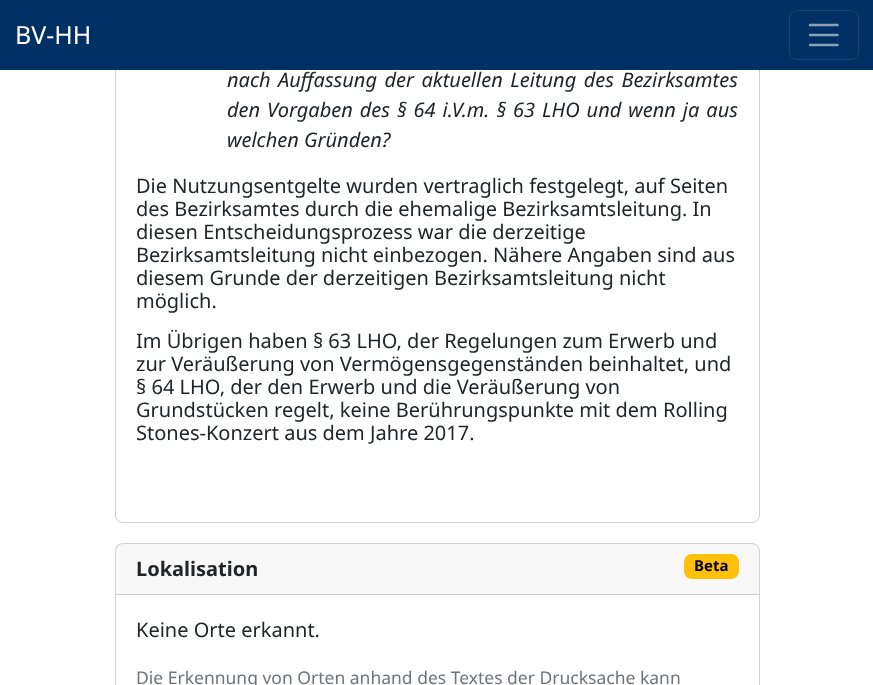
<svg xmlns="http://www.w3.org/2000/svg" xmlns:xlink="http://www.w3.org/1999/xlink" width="873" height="685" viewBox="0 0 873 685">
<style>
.cls-1{font:25px Noto Sans;fill:#ffffff}
.cls-2{font:italic 20px Noto Sans;fill:#212529}
.cls-3{font:20px Noto Sans;fill:#212529}
.cls-4{font:bold 20px Noto Sans;fill:#212529}
.cls-5{font:bold 15px Noto Sans;fill:#000000}
.cls-6{font:17.5px Noto Sans;fill:#6c757d}
</style>
<rect width="100%" height="100%" fill="#ffffff"/>
<rect fill="none" stroke="#d2d2d2" x="115.5" y="-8.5" width="644" height="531" rx="7.5"/>
<rect fill="#003064" x="0" y="0" width="873" height="70"/>
<rect fill="none" stroke="#1a4574" x="789.5" y="10.5" width="69" height="49" rx="7.5"/>
<path fill="none" stroke="#8ca2b9" stroke-width="2.5" stroke-linecap="round" d="M810 25H837.5M810 35H837.5M810 45H837.5"/>
<rect fill="none" stroke="#d2d2d2" x="115.5" y="543.5" width="644" height="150" rx="7.5"/>
<rect fill="#212529" fill-opacity="0.03" x="116" y="544" width="643" height="50"/>
<rect fill="#cdcdcd" x="116" y="594" width="643" height="1"/>
<rect fill="#ffc107" x="684" y="554" width="55" height="25" rx="8"/>
<text class="cls-1" x="15" y="44">BV-HH</text>
<text class="cls-2"><tspan x="227" y="87" word-spacing="2.25">nach Auffassung der aktuellen Leitung des Bezirksamtes</tspan><tspan x="227" y="117" word-spacing="1.75">den Vorgaben des § 64 i.V.m. § 63 LHO und wenn ja aus</tspan><tspan x="227" y="147">welchen Gründen?</tspan></text>
<text class="cls-3"><tspan x="136" y="193">Die Nutzungsentgelte wurden vertraglich festgelegt, auf Seiten</tspan><tspan x="136" y="216">des Bezirksamtes durch die ehemalige Bezirksamtsleitung. In</tspan><tspan x="136" y="239">diesen Entscheidungsprozess war die derzeitige</tspan><tspan x="136" y="262">Bezirksamtsleitung nicht einbezogen. Nähere Angaben sind aus</tspan><tspan x="136" y="285">diesem Grunde der derzeitigen Bezirksamtsleitung nicht</tspan><tspan x="136" y="308">möglich.</tspan></text>
<text class="cls-3"><tspan x="136" y="348">Im Übrigen haben § 63 LHO, der Regelungen zum Erwerb und</tspan><tspan x="136" y="371">zur Veräußerung von Vermögensgegenständen beinhaltet, und</tspan><tspan x="136" y="394">§ 64 LHO, der den Erwerb und die Veräußerung von</tspan><tspan x="136" y="417">Grundstücken regelt, keine Berührungspunkte mit dem Rolling</tspan><tspan x="136" y="440">Stones-Konzert aus dem Jahre 2017.</tspan></text>
<text class="cls-4" x="136" y="576">Lokalisation</text>
<text class="cls-5" x="694" y="571">Beta</text>
<text class="cls-3" x="136" y="637">Keine Orte erkannt.</text>
<text class="cls-6" x="136" y="684">Die Erkennung von Orten anhand des Textes der Drucksache kann</text>
</svg>
